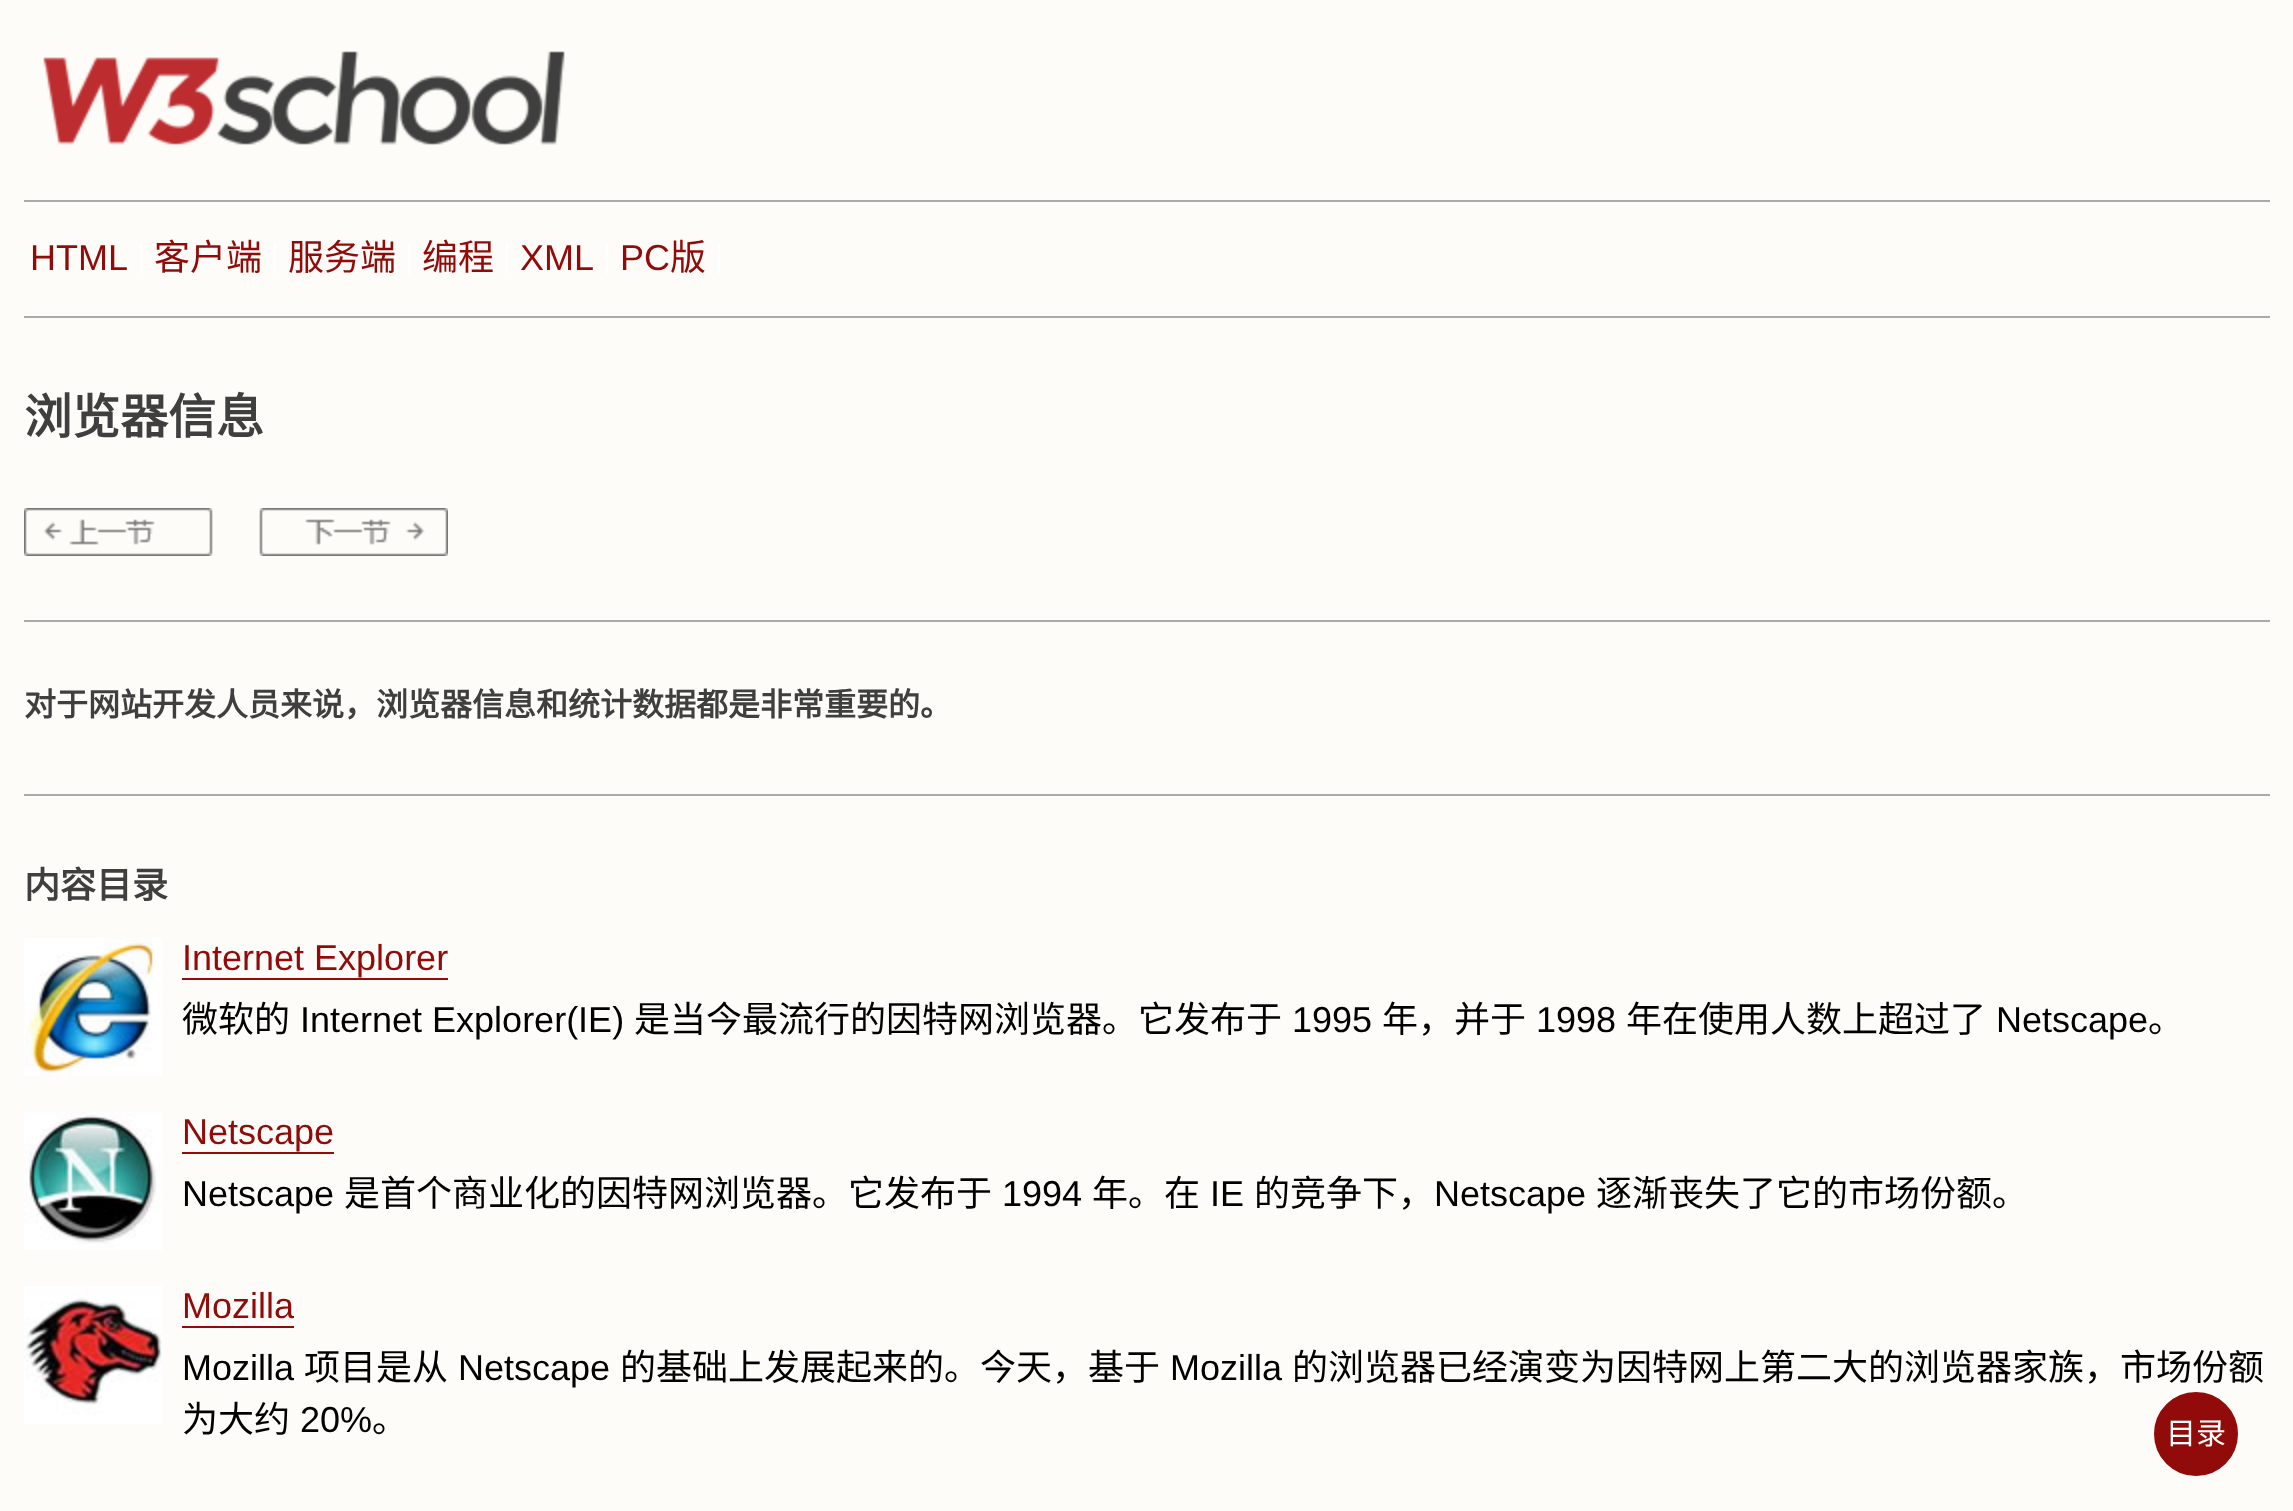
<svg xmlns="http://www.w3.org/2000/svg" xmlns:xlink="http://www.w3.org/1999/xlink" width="2293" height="1511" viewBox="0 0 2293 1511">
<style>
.cls-1{font:36px Liberation Sans;fill:#900b09}
.cls-2{font:36px Noto Sans CJK SC;fill:#900b09}
.cls-3{font:bold 48px Noto Sans CJK SC;fill:#3f3f3f}
.cls-4{font:bold 32px Noto Sans CJK SC;fill:#3f3f3f}
.cls-5{font:bold 36px Noto Sans CJK SC;fill:#3f3f3f}
.cls-6{font:36px Noto Sans CJK SC;fill:#000000}
.cls-7{font:36px Liberation Sans;fill:#000000}
.cls-8{font:30px Noto Sans CJK SC;fill:#ffffff}
</style>
<rect width="100%" height="100%" fill="#fdfcf8"/>
<rect fill="#aaaaaa" x="24" y="200" width="2246" height="2"/>
<image xlink:href="image0.png" x="43" y="51" width="522" height="94"/>
<rect fill="#aaaaaa" x="24" y="316" width="2246" height="2"/>
<rect fill="#ffffff" x="140" y="244" width="2" height="30"/>
<rect fill="#ffffff" x="274" y="244" width="2" height="30"/>
<rect fill="#ffffff" x="408" y="244" width="2" height="30"/>
<rect fill="#ffffff" x="506" y="244" width="2" height="30"/>
<rect fill="#ffffff" x="606" y="244" width="2" height="30"/>
<rect fill="#ffffff" x="718" y="244" width="2" height="30"/>
<rect fill="#aaaaaa" x="24" y="620" width="2246" height="2"/>
<image xlink:href="image1.png" x="24" y="508" width="424" height="48"/>
<rect fill="#aaaaaa" x="24" y="794" width="2246" height="2"/>
<image xlink:href="image2.png" x="24" y="938" width="138" height="138"/>
<rect fill="#900b09" x="182" y="978" width="266" height="2"/>
<image xlink:href="image3.png" x="24" y="1112" width="138" height="138"/>
<rect fill="#900b09" x="182" y="1152" width="152" height="2"/>
<image xlink:href="image4.png" x="24" y="1286" width="138" height="138"/>
<rect fill="#900b09" x="182" y="1326" width="112" height="2"/>
<circle fill="#900b09" stroke="#900b09" stroke-width="4" cx="2196" cy="1434" r="40"/>
<text class="cls-1" x="30" y="270">HTML</text>
<text class="cls-2" x="154" y="270">客户端</text>
<text class="cls-2" x="288" y="270">服务端</text>
<text class="cls-2" x="422" y="270">编程</text>
<text class="cls-1" x="520" y="270">XML</text>
<text class="cls-1" x="620" y="270">PC</text>
<text class="cls-2" x="670" y="270">版</text>
<text class="cls-3" x="24" y="434">浏览器信息</text>
<text class="cls-4" x="24" y="716">对于网站开发人员来说，浏览器信息和统计数据都是非常重要的。</text>
<text class="cls-5" x="24" y="898">内容目录</text>
<text class="cls-1" x="182" y="970">Internet Explorer</text>
<text class="cls-6" x="182" y="1032">微软的</text>
<text class="cls-7" x="300" y="1032">Internet Explorer(IE)</text>
<text class="cls-6" x="634" y="1032">是当今最流行的因特网浏览器。它发布于</text>
<text class="cls-7" x="1292" y="1032">1995</text>
<text class="cls-6" x="1382" y="1032">年，并于</text>
<text class="cls-7" x="1536" y="1032">1998</text>
<text class="cls-6" x="1626" y="1032">年在使用人数上超过了</text>
<text class="cls-7" x="1996" y="1032">Netscape</text>
<text class="cls-6" x="2148" y="1032">。</text>
<text class="cls-1" x="182" y="1144">Netscape</text>
<text class="cls-7" x="182" y="1206">Netscape</text>
<text class="cls-6" x="344" y="1206">是首个商业化的因特网浏览器。它发布于</text>
<text class="cls-7" x="1002" y="1206">1994</text>
<text class="cls-6" x="1092" y="1206">年。在</text>
<text class="cls-7" x="1210" y="1206">IE</text>
<text class="cls-6" x="1254" y="1206">的竞争下，</text>
<text class="cls-7" x="1434" y="1206">Netscape</text>
<text class="cls-6" x="1596" y="1206">逐渐丧失了它的市场份额。</text>
<text class="cls-1" x="182" y="1318">Mozilla</text>
<text class="cls-7" x="182" y="1380">Mozilla</text>
<text class="cls-6" x="304" y="1380">项目是从</text>
<text class="cls-7" x="458" y="1380">Netscape</text>
<text class="cls-6" x="620" y="1380">的基础上发展起来的。今天，基于</text>
<text class="cls-7" x="1170" y="1380">Mozilla</text>
<text class="cls-6" x="1292" y="1380">的浏览器已经演变为因特网上第二大的浏览器家族，市场份额</text>
<text class="cls-6" x="182" y="1432">为大约</text>
<text class="cls-7" x="300" y="1432">20%</text>
<text class="cls-6" x="372" y="1432">。</text>
<text class="cls-8" x="2166" y="1444">目录</text>
</svg>
